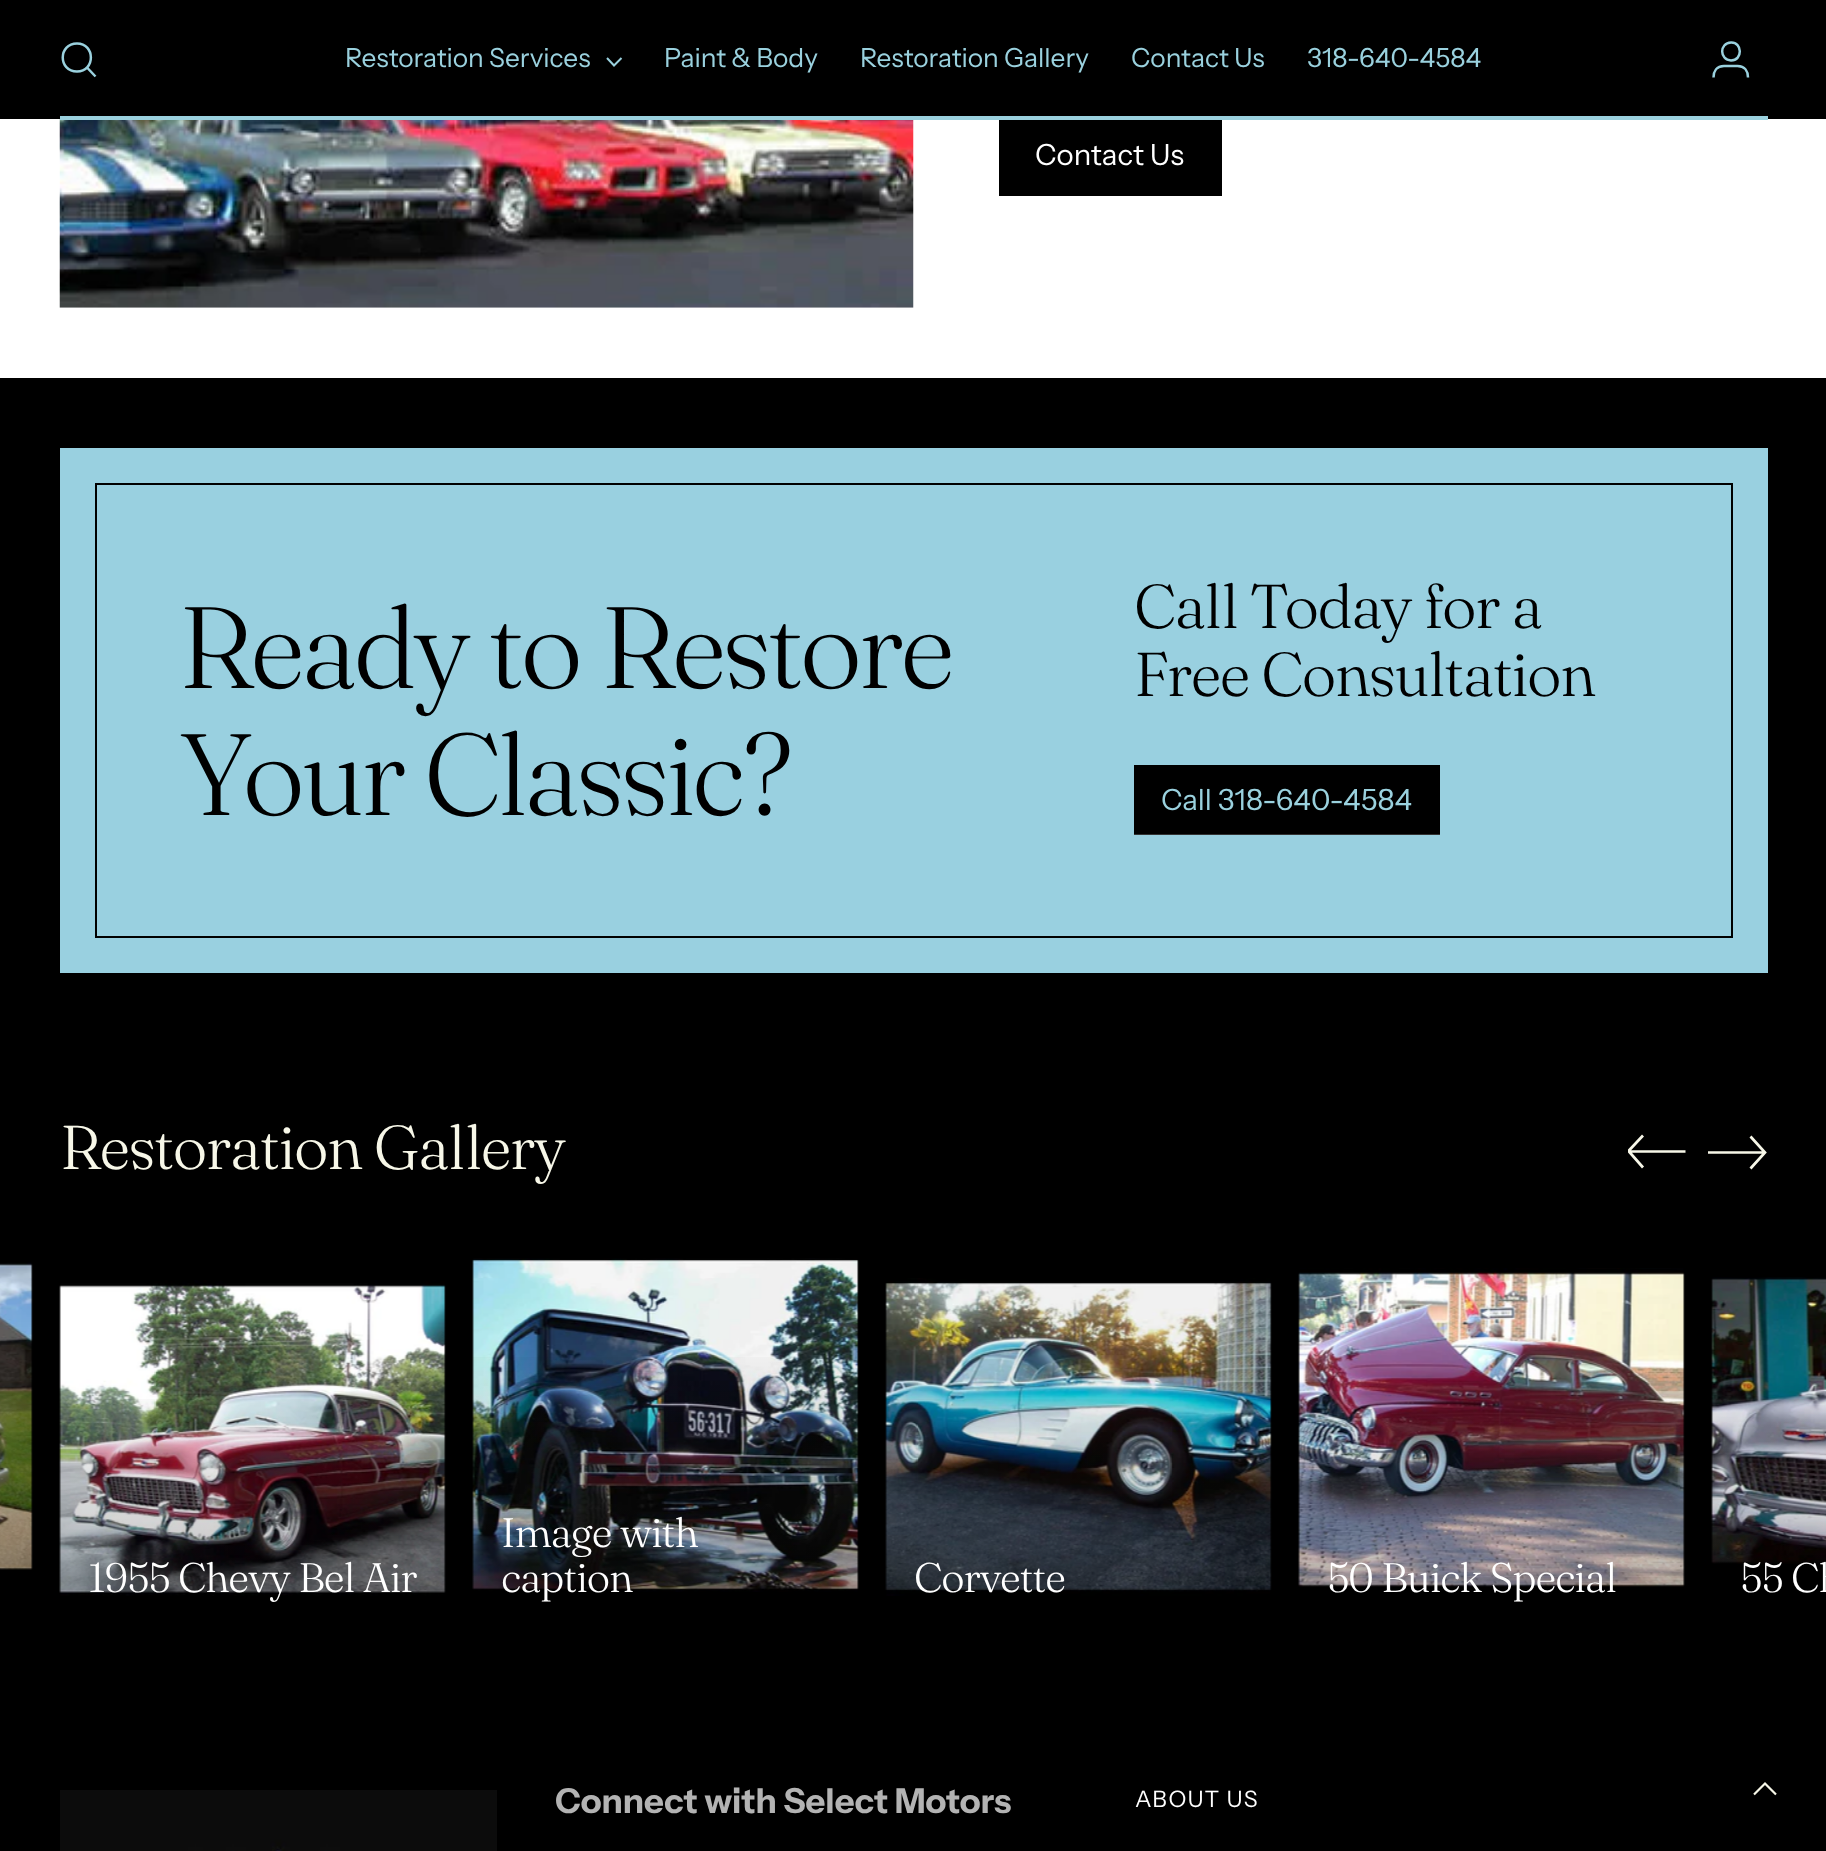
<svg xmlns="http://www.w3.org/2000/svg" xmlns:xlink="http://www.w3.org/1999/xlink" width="1826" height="1851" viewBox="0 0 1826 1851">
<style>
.cls-1{font:26.25px Instrument Sans;fill:#9ad1de}
.cls-2{font:29.25px Instrument Sans;fill:#ffffff}
.cls-3{font:300 115.5px Fraunces;letter-spacing:-2.9px;fill:#000000}
.cls-4{font:300 61.75px 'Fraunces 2';letter-spacing:-1.5px;fill:#000000}
.cls-5{font:29.25px Instrument Sans;fill:#9ad1de}
.cls-6{font:300 61.75px 'Fraunces 2';letter-spacing:-1.5px;fill:#f7f7e8}
.cls-7{font:300 41.25px 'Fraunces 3';letter-spacing:-1px;fill:#ffffff}
.cls-8{font:bold 34.4px Instrument Sans;fill:#b3b3b3}
.cls-9{font:22.75px Instrument Sans;letter-spacing:1.25px;fill:#ffffff}
</style>
<defs>
<clipPath id="clip1"><rect x="999" y="112" width="223" height="84"/></clipPath>
<clipPath id="clip2"><rect x="1134" y="765" width="306" height="70"/></clipPath>
<clipPath id="clip3"><rect x="1628" y="1124" width="59" height="59"/></clipPath>
<linearGradient id="g1" gradientUnits="userSpaceOnUse" x1="-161" y1="1622" x2="-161" y2="1335"><stop offset="0" stop-color="#000000" stop-opacity="0.4"/><stop offset="0.3" stop-color="#000000" stop-opacity="0.2"/><stop offset="1" stop-color="#000000" stop-opacity="0"/></linearGradient>
<linearGradient id="g2" gradientUnits="userSpaceOnUse" x1="252" y1="1622" x2="252" y2="1381"><stop offset="0" stop-color="#000000" stop-opacity="0.4"/><stop offset="0.3" stop-color="#000000" stop-opacity="0.2"/><stop offset="1" stop-color="#000000" stop-opacity="0"/></linearGradient>
<linearGradient id="g3" gradientUnits="userSpaceOnUse" x1="665" y1="1622" x2="665" y2="1335"><stop offset="0" stop-color="#000000" stop-opacity="0.4"/><stop offset="0.3" stop-color="#000000" stop-opacity="0.2"/><stop offset="1" stop-color="#000000" stop-opacity="0"/></linearGradient>
<linearGradient id="g4" gradientUnits="userSpaceOnUse" x1="1078" y1="1622" x2="1078" y2="1381"><stop offset="0" stop-color="#000000" stop-opacity="0.4"/><stop offset="0.3" stop-color="#000000" stop-opacity="0.2"/><stop offset="1" stop-color="#000000" stop-opacity="0"/></linearGradient>
<linearGradient id="g5" gradientUnits="userSpaceOnUse" x1="1491" y1="1622" x2="1491" y2="1381"><stop offset="0" stop-color="#000000" stop-opacity="0.4"/><stop offset="0.3" stop-color="#000000" stop-opacity="0.2"/><stop offset="1" stop-color="#000000" stop-opacity="0"/></linearGradient>
<linearGradient id="g6" gradientUnits="userSpaceOnUse" x1="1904" y1="1622" x2="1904" y2="1381"><stop offset="0" stop-color="#000000" stop-opacity="0.4"/><stop offset="0.3" stop-color="#000000" stop-opacity="0.2"/><stop offset="1" stop-color="#000000" stop-opacity="0"/></linearGradient>
</defs>
<rect width="100%" height="100%" fill="#000000"/>
<rect fill="#ffffff" x="0" y="119" width="1826" height="259"/>
<image xlink:href="image0.png" x="59" y="119" width="855" height="189"/>
<g clip-path="url(#clip1)">
<path fill="#000000" d="M941 113H1230L1279 197H990Z"/>
</g>
<rect fill="#9ad1de" x="60" y="116" width="1708" height="4"/>
<path fill="none" stroke="#9ad1de" stroke-width="2.5" stroke-linecap="round" d="M77 71.5C95.5 71.5 95.5 43.5 77 43.5C58 43.5 58 71.5 77 71.5Z"/>
<path fill="none" stroke="#9ad1de" stroke-width="2.5" d="M87 67.5L95.5 76.5"/>
<path fill="none" stroke="#9ad1de" stroke-width="2" d="M607 58L614 65.5L621.5 58"/>
<path fill="none" stroke="#9ad1de" stroke-width="2.5" d="M1731 60.5C1743 60.5 1742.5 42 1731 42.5C1719 43 1719.5 60 1731 60.5ZM1713.5 77.5C1713.5 71.5 1716.5 66 1724 66H1737.5C1745 66 1748 71.5 1748 77.5"/>
<rect fill="#99d0e0" x="60" y="448" width="1708" height="525"/>
<rect fill="none" stroke="#000000" stroke-width="2" x="96" y="484" width="1636" height="453"/>
<g clip-path="url(#clip2)">
<path fill="#000000" d="M1068 764H1466L1507 834H1108Z"/>
</g>
<rect fill="#333333" x="1134" y="834" width="306" height="1"/>
<g clip-path="url(#clip3)">
<path fill="none" stroke="#f7f7e8" stroke-width="2.7" d="M1643 1135.5L1628.5 1151L1643 1167.5M1628.5 1151.5H1685.5"/>
</g>
<path fill="none" stroke="#f7f7e8" stroke-width="2.7" d="M1750.5 1168.5L1765 1152.5L1750.5 1136.5M1765 1152.5H1708"/>
<image xlink:href="image1.png" x="0" y="1262" width="33" height="308"/>
<rect fill="url(#g1)" x="0" y="1388" width="32" height="182"/>
<image xlink:href="image2.png" x="59" y="1280" width="387" height="316"/>
<rect fill="url(#g2)" x="60" y="1399" width="385" height="194"/>
<image xlink:href="image3.png" x="472" y="1258" width="387" height="334"/>
<rect fill="url(#g3)" x="473" y="1357" width="385" height="234"/>
<image xlink:href="image4.png" x="885" y="1278" width="387" height="318"/>
<rect fill="url(#g4)" x="886" y="1399" width="385" height="192"/>
<image xlink:href="image5.png" x="1298" y="1268" width="387" height="319"/>
<rect fill="url(#g5)" x="1299" y="1399" width="385" height="188"/>
<image xlink:href="image6.png" x="1711" y="1277" width="115" height="287"/>
<rect fill="url(#g6)" x="1712" y="1399" width="114" height="164"/>
<image xlink:href="image7.png" x="60" y="1790" width="437" height="61"/>
<path fill="none" stroke="#f7f7e8" stroke-width="2.2" d="M1776 1794.5L1765 1783.5L1754 1794.5"/>
<text class="cls-1" x="345" y="67">Restoration Services</text>
<text class="cls-1" x="664" y="67">Paint &amp; Body</text>
<text class="cls-1" x="860" y="67">Restoration Gallery</text>
<text class="cls-1" x="1131" y="67">Contact Us</text>
<text class="cls-1" x="1307" y="67">318-640-4584</text>
<text class="cls-2" x="1035" y="165">Contact Us</text>
<text class="cls-3"><tspan x="179" y="688">Ready to Restore</tspan><tspan x="179" y="815">Your Classic?</tspan></text>
<text class="cls-4"><tspan x="1134" y="628">Call Today for a</tspan><tspan x="1134" y="696">Free Consultation</tspan></text>
<text class="cls-5" x="1161" y="810">Call 318-640-4584</text>
<text class="cls-6" x="60" y="1169">Restoration Gallery</text>
<text class="cls-7" x="88" y="1592">1955 Chevy Bel Air</text>
<text class="cls-7"><tspan x="501" y="1547">Image with</tspan><tspan x="501" y="1592">caption</tspan></text>
<text class="cls-7" x="914" y="1592">Corvette</text>
<text class="cls-7" x="1327" y="1592">50 Buick Special</text>
<text class="cls-7" x="1740" y="1592">55 Ch</text>
<text class="cls-8" x="555" y="1813">Connect with Select Motors</text>
<text class="cls-9" x="1135" y="1807">ABOUT US</text>
</svg>
